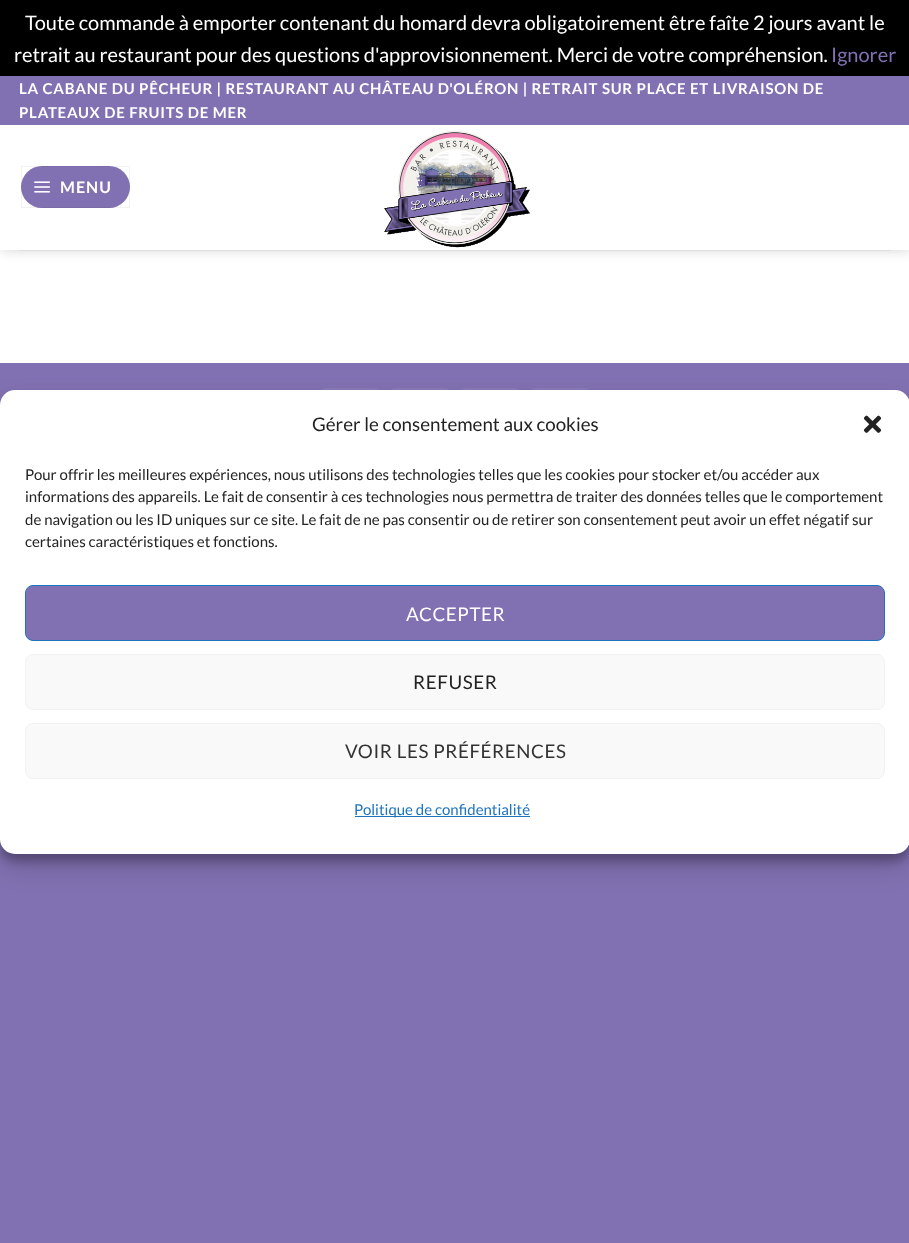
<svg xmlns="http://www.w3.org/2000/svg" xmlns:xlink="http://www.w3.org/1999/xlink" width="909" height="1243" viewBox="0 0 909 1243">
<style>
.cls-1{font:20px Lato;fill:#ffffff}
.cls-2{font:20px Lato;fill:#8271b2}
.cls-3{font:bold 15px Lato;letter-spacing:0.75px;fill:#ffffff}
.cls-4{font:bold 16px Lato;letter-spacing:1px;fill:#ffffff}
.cls-5{font:18.75px Lato;fill:#222222}
.cls-6{font:15px Lato;fill:#222222}
.cls-7{font:18.75px Lato;letter-spacing:0.6px;fill:#ffffff}
.cls-8{font:18.75px Lato;letter-spacing:0.6px;fill:#222222}
.cls-9{font:18.75px Lato;letter-spacing:0.6px;fill:#333333}
.cls-10{font:15px Lato;fill:#1e73be}
</style>
<defs>
<clipPath id="clip1"><path d="M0 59H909V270H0ZM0 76H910V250H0Z" clip-rule="evenodd"/></clipPath>
</defs>
<rect width="100%" height="100%" fill="#8271b2"/>
<rect fill="#000000" x="0" y="0" width="909" height="76"/>
<rect fill="#ffffff" x="0" y="125" width="909" height="238"/>
<g clip-path="url(#clip1)">
<rect fill="#000000" fill-opacity="0.15" filter="blur(6px)" x="1" y="78" width="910" height="173"/>
</g>
<rect fill="#8271b2" x="11" y="76" width="890" height="1"/>
<rect fill="#8271b2" x="21" y="166" width="109" height="42" rx="21"/>
<rect fill="none" stroke="#000000" stroke-opacity="0.05" x="21.5" y="166.5" width="108" height="41"/>
<image xlink:href="image0.png" x="34" y="181" width="16" height="12"/>
<image xlink:href="image1.png" x="384" y="131" width="146" height="117"/>
<rect fill="#dfdfdf" x="19" y="250" width="872" height="1"/>
<rect fill="#8a7ab7" x="319" y="388" width="62" height="38" rx="6"/>
<rect fill="#8a7ab7" x="389" y="388" width="62" height="38" rx="6"/>
<rect fill="#8a7ab7" x="459" y="388" width="62" height="38" rx="6"/>
<rect fill="#8a7ab7" x="529" y="388" width="62" height="38" rx="6"/>
<rect fill="#000000" fill-opacity="0.23" filter="blur(4px)" x="0" y="398" width="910" height="463" rx="15"/>
<rect fill="#000000" fill-opacity="0.19" filter="blur(12.5px)" x="0" y="403" width="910" height="463" rx="15"/>
<rect fill="#ffffff" x="0" y="390" width="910" height="464" rx="15"/>
<image xlink:href="image2.png" x="863" y="415" width="19" height="18"/>
<rect fill="#8271b2" stroke="#1e73be" x="25.5" y="585.5" width="859" height="55" rx="7.5"/>
<rect fill="#f9f9f9" stroke="#f2f2f2" x="25.5" y="654.5" width="859" height="55" rx="7.5"/>
<rect fill="#f9f9f9" stroke="#f2f2f2" x="25.5" y="723.5" width="859" height="55" rx="7.5"/>
<rect fill="#1e73be" x="355" y="816" width="175" height="1"/>
<text class="cls-1" x="25" y="30">Toute commande à emporter contenant du homard devra obligatoirement être faîte 2 jours avant le</text>
<text class="cls-1" x="14" y="62">retrait au restaurant pour des questions d'approvisionnement. Merci de votre compréhension.</text>
<text class="cls-2" x="831" y="62">Ignorer</text>
<text class="cls-3"><tspan x="19" y="94">LA CABANE DU PÊCHEUR | RESTAURANT AU CHÂTEAU D'OLÉRON | RETRAIT SUR PLACE ET LIVRAISON DE</tspan><tspan x="19" y="118">PLATEAUX DE FRUITS DE MER</tspan></text>
<text class="cls-4" x="60" y="193">MENU</text>
<text class="cls-5" x="312" y="431">Gérer le consentement aux cookies</text>
<text class="cls-6"><tspan x="25" y="480">Pour offrir les meilleures expériences, nous utilisons des technologies telles que les cookies pour stocker et/ou accéder aux</tspan><tspan x="25" y="502">informations des appareils. Le fait de consentir à ces technologies nous permettra de traiter des données telles que le comportement</tspan><tspan x="25" y="525">de navigation ou les ID uniques sur ce site. Le fait de ne pas consentir ou de retirer son consentement peut avoir un effet négatif sur</tspan><tspan x="25" y="547">certaines caractéristiques et fonctions.</tspan></text>
<text class="cls-7" x="406" y="621">ACCEPTER</text>
<text class="cls-8" x="413" y="689">REFUSER</text>
<text class="cls-9" x="345" y="758">VOIR LES PRÉFÉRENCES</text>
<text class="cls-10" x="354" y="815">Politique de confidentialité</text>
</svg>
